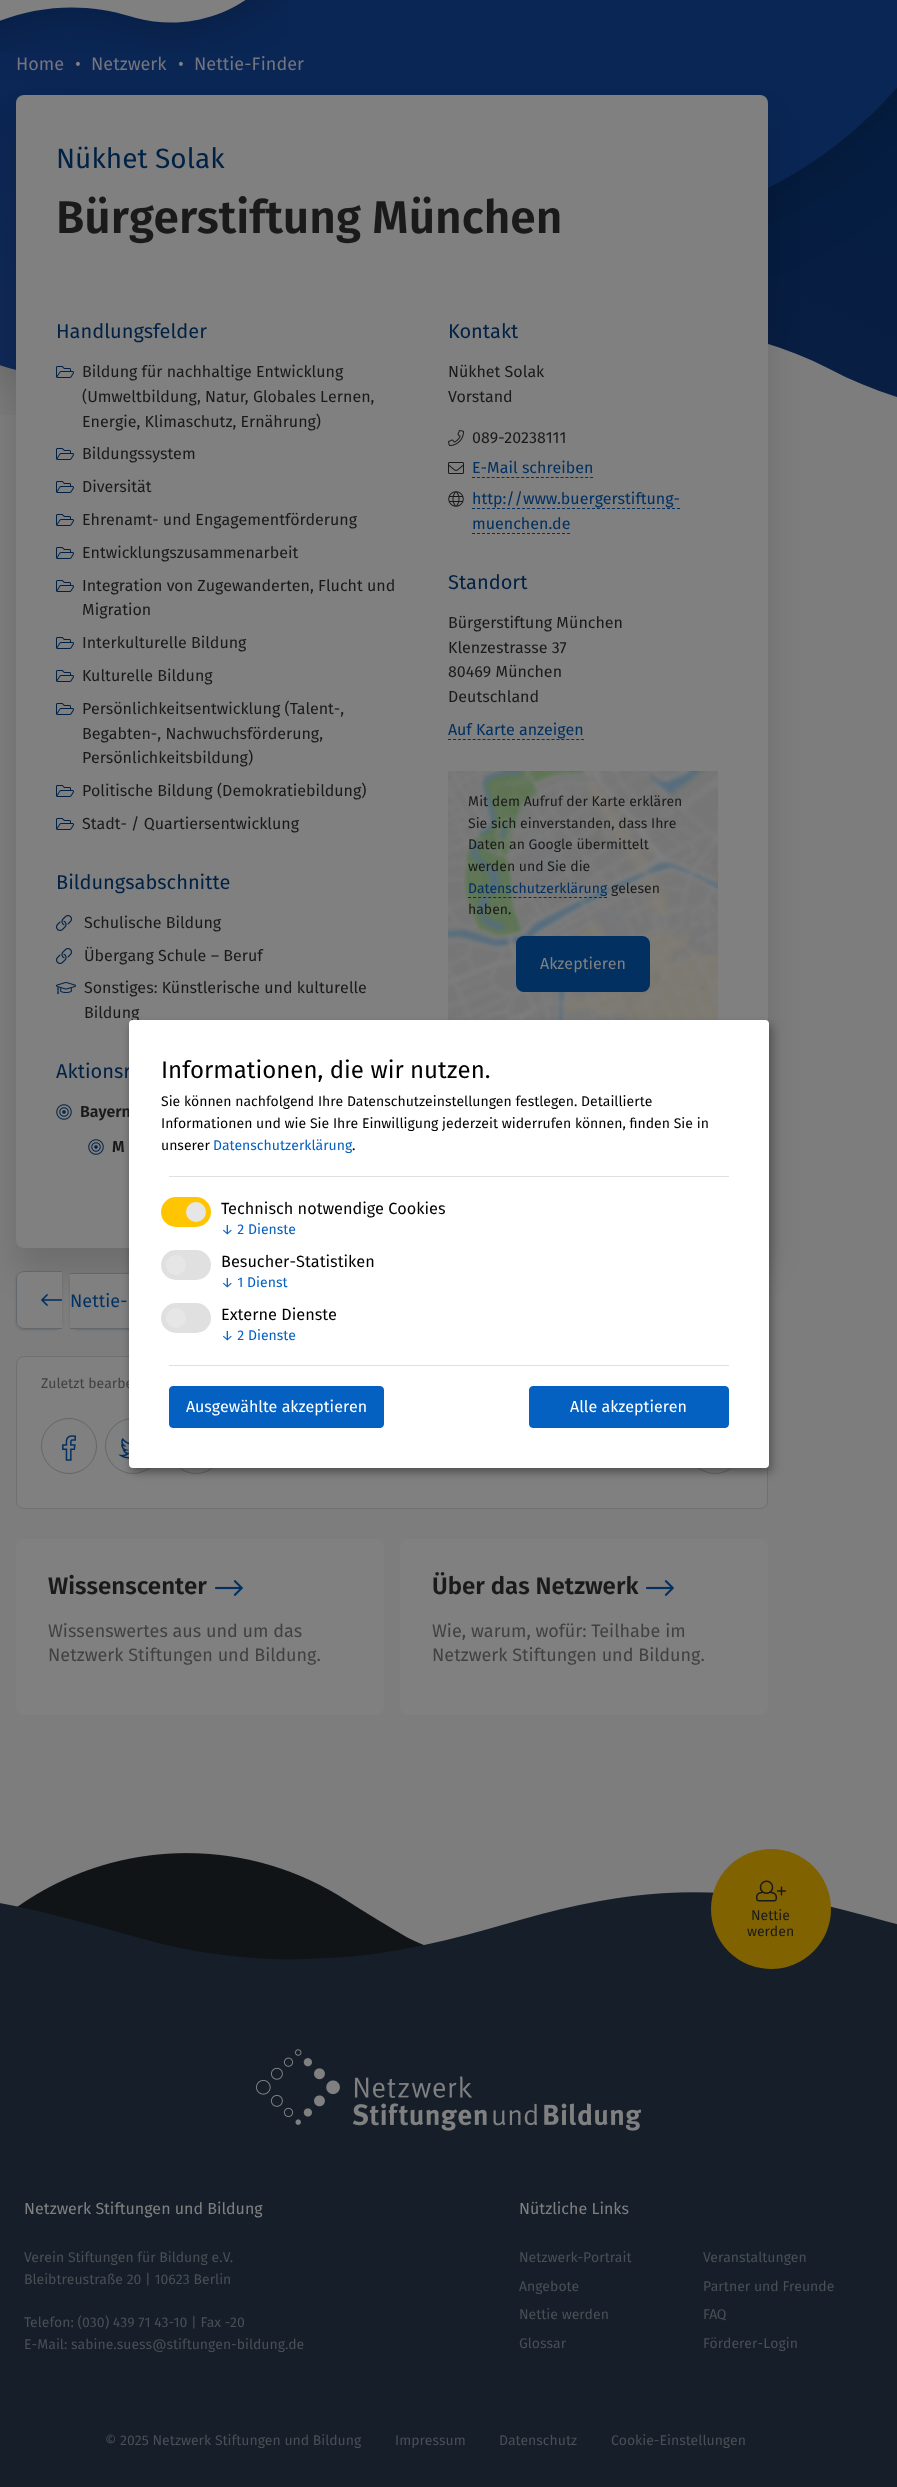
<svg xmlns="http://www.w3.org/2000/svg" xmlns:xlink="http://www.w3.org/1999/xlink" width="897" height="2487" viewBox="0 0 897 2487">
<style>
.cls-1{font:18px Fira Sans;fill:#74757f}
.cls-2{font:18px Fira Sans;fill:#808080}
.cls-3{font:28px Fira Sans;fill:#002144}
.cls-4{font:600 46px Fira Sans;fill:#1a1a1a}
.cls-5{font:20px Fira Sans;fill:#002144}
.cls-6{font:16px Fira Sans;fill:#1a1a1a}
.cls-7{font:600 16px Fira Sans;fill:#1a1a1a}
.cls-8{font:16px Fira Sans;fill:#023061}
.cls-9{font:14px Fira Sans;fill:#1a1a1a}
.cls-10{font:14px Fira Sans;fill:#023061}
.cls-11{font:16px Fira Sans;fill:#808080}
.cls-12{font:18px Fira Sans;fill:#023061}
.cls-13{font:14px Fira Sans;fill:#414141}
.cls-14{font:600 24px Fira Sans;fill:#1a1a1a}
.cls-15{font:18px Fira Sans;fill:#414141}
.cls-16{font:14px Fira Sans;fill:#4a4f55}
.cls-17{font:24px Fira Sans;fill:#000000}
.cls-18{font:14px Fira Sans;fill:#000000}
.cls-19{font:14px Fira Sans;fill:#0460c1}
.cls-20{font:16.25px Fira Sans;fill:#000000}
.cls-21{font:16px Fira Sans;fill:#ffffff}
</style>
<rect width="100%" height="100%" fill="#7d7d7d"/>
<image xlink:href="image2.png" x="768" y="87" width="129" height="310"/>
<image xlink:href="image0.png" x="0" y="0" width="897" height="415"/>
<image xlink:href="image1.png" x="0" y="0" width="289" height="53"/>
<rect fill="#000000" fill-opacity="0.12" filter="blur(16px)" x="16" y="119" width="752" height="1153" rx="8"/>
<rect fill="#808080" x="16" y="95" width="752" height="1153" rx="8"/>
<image xlink:href="image3.png" x="56" y="366" width="18" height="12"/>
<image xlink:href="image3.png" x="56" y="448" width="18" height="12"/>
<image xlink:href="image3.png" x="56" y="481" width="18" height="12"/>
<image xlink:href="image3.png" x="56" y="514" width="18" height="12"/>
<image xlink:href="image3.png" x="56" y="547" width="18" height="12"/>
<image xlink:href="image3.png" x="56" y="580" width="18" height="12"/>
<image xlink:href="image3.png" x="56" y="637" width="18" height="12"/>
<image xlink:href="image3.png" x="56" y="670" width="18" height="12"/>
<image xlink:href="image3.png" x="56" y="703" width="18" height="12"/>
<image xlink:href="image3.png" x="56" y="785" width="18" height="12"/>
<image xlink:href="image3.png" x="56" y="818" width="18" height="12"/>
<image xlink:href="image4.png" x="56" y="915" width="16" height="16"/>
<image xlink:href="image4.png" x="56" y="948" width="16" height="16"/>
<image xlink:href="image5.png" x="56" y="982" width="20" height="12"/>
<image xlink:href="image6.png" x="56" y="1104" width="16" height="16"/>
<image xlink:href="image6.png" x="88" y="1139" width="16" height="16"/>
<image xlink:href="image7.png" x="448" y="430" width="16" height="16"/>
<image xlink:href="image8.png" x="448" y="462" width="16" height="12"/>
<path fill="none" stroke="#023061" stroke-dasharray="3 1.92" d="M472 477.5H593"/>
<image xlink:href="image9.png" x="448" y="491" width="16" height="16"/>
<path fill="none" stroke="#023061" stroke-dasharray="3 2" d="M472 508.5H680"/>
<path fill="none" stroke="#023061" stroke-dasharray="3 2" d="M472 533.5H570"/>
<path fill="none" stroke="#023061" stroke-dasharray="3 1.93" d="M448 739.5H584"/>
<image xlink:href="image10.png" x="448" y="771" width="270" height="249"/>
<path fill="none" stroke="#023061" stroke-dasharray="3 2.04" d="M468 897.5H607"/>
<rect fill="#023061" x="516" y="936" width="134" height="56" rx="8"/>
<rect fill="#0b0f13" fill-opacity="0.16" filter="blur(1px)" x="16" y="1272" width="46" height="58" rx="8"/>
<path fill="#808080" d="M24 1271H62V1329H24C19.5 1329 16 1325.5 16 1321V1279C16 1274.5 19.5 1271 24 1271Z"/>
<path fill="#62676b" fill-rule="evenodd" d="M24 1271H62V1329H24C20 1329 16 1325 16 1321V1279C16 1275 20 1271 24 1271ZM24 1272H62V1328H24C20 1328 17 1325 17 1321V1279C17 1275 20 1272 24 1272Z"/>
<rect fill="#0b0f13" fill-opacity="0.16" filter="blur(1px)" x="70" y="1274" width="135" height="56" rx="8"/>
<rect fill="#808080" x="70" y="1274" width="59" height="54"/>
<path fill="#62676b" fill-rule="evenodd" d="M70 1273H197C201 1273 205 1277 205 1281V1321C205 1325 201 1329 197 1329H70ZM70 1274H197C201 1274 204 1277 204 1281V1321C204 1325 201 1328 197 1328H70Z"/>
<image xlink:href="image11.png" x="41" y="1294" width="21" height="12"/>
<rect fill="#808080" stroke="#707070" x="16.5" y="1356.5" width="751" height="152" rx="7.5"/>
<circle fill="none" stroke="#62676b" cx="69" cy="1446" r="27.5"/>
<image xlink:href="image12.png" x="62" y="1435" width="14" height="26"/>
<circle fill="none" stroke="#62676b" cx="133" cy="1446" r="27.5"/>
<image xlink:href="image13.png" x="118" y="1438" width="11" height="21"/>
<circle fill="none" stroke="#62676b" cx="196" cy="1446" r="27.5"/>
<circle fill="none" stroke="#62676b" cx="715" cy="1446" r="27.5"/>
<rect fill="#808080" x="16" y="1539" width="368" height="176" rx="8"/>
<image xlink:href="image14.png" x="215" y="1580" width="28" height="16"/>
<rect fill="#808080" x="400" y="1539" width="368" height="176" rx="8"/>
<image xlink:href="image14.png" x="646" y="1580" width="28" height="16"/>
<image xlink:href="image15.png" x="17" y="1853" width="407" height="107"/>
<image xlink:href="image16.png" x="0" y="1892" width="897" height="595"/>
<circle fill="#806300" cx="771" cy="1909" r="60"/>
<image xlink:href="image17.png" x="756" y="1880" width="30" height="22"/>
<image xlink:href="image18.png" x="256" y="2049" width="385" height="82"/>
<rect fill="#000000" fill-opacity="0.19" filter="blur(5px)" x="134" y="1025" width="640" height="448" rx="4"/>
<rect fill="#000000" fill-opacity="0.2" filter="blur(3px)" x="129" y="1024" width="640" height="448" rx="4"/>
<text class="cls-1" x="16" y="70">Home</text>
<text class="cls-2" x="75" y="70">•</text>
<text class="cls-1" x="91" y="70">Netzwerk</text>
<text class="cls-2" x="178" y="70">•</text>
<text class="cls-1" x="194" y="70">Nettie-Finder</text>
<text class="cls-3" x="56" y="168">Nükhet Solak</text>
<text class="cls-4" x="56" y="233">Bürgerstiftung München</text>
<text class="cls-5" x="56" y="338">Handlungsfelder</text>
<text class="cls-6"><tspan x="82" y="377">Bildung für nachhaltige Entwicklung</tspan><tspan x="82" y="402">(Umweltbildung, Natur, Globales Lernen,</tspan><tspan x="82" y="427">Energie, Klimaschutz, Ernährung)</tspan></text>
<text class="cls-6" x="82" y="459">Bildungssystem</text>
<text class="cls-6" x="82" y="492">Diversität</text>
<text class="cls-6" x="82" y="525">Ehrenamt- und Engagementförderung</text>
<text class="cls-6" x="82" y="558">Entwicklungszusammenarbeit</text>
<text class="cls-6"><tspan x="82" y="591">Integration von Zugewanderten, Flucht und</tspan><tspan x="82" y="615">Migration</tspan></text>
<text class="cls-6" x="82" y="648">Interkulturelle Bildung</text>
<text class="cls-6" x="82" y="681">Kulturelle Bildung</text>
<text class="cls-6"><tspan x="82" y="714">Persönlichkeitsentwicklung (Talent-,</tspan><tspan x="82" y="739">Begabten-, Nachwuchsförderung,</tspan><tspan x="82" y="763">Persönlichkeitsbildung)</tspan></text>
<text class="cls-6" x="82" y="796">Politische Bildung (Demokratiebildung)</text>
<text class="cls-6" x="82" y="829">Stadt- / Quartiersentwicklung</text>
<text class="cls-5" x="56" y="889">Bildungsabschnitte</text>
<text class="cls-6" x="84" y="928">Schulische Bildung</text>
<text class="cls-6" x="84" y="961">Übergang Schule – Beruf</text>
<text class="cls-6"><tspan x="84" y="993">Sonstiges: Künstlerische und kulturelle</tspan><tspan x="84" y="1018">Bildung</tspan></text>
<text class="cls-5" x="56" y="1078">Aktionsr</text>
<text class="cls-7" x="80" y="1117">Bayern</text>
<text class="cls-7" x="112" y="1152">M</text>
<text class="cls-5" x="448" y="338">Kontakt</text>
<text class="cls-6"><tspan x="448" y="377">Nükhet Solak</tspan><tspan x="448" y="402">Vorstand</tspan></text>
<text class="cls-6" x="472" y="443">089-20238111</text>
<text class="cls-8"><tspan x="472" y="473">E-Mail schreiben</tspan><tspan x="472" y="504">http://www.buergerstiftung-</tspan><tspan x="472" y="529">muenchen.de</tspan></text>
<text class="cls-5" x="448" y="589">Standort</text>
<text class="cls-6"><tspan x="448" y="628">Bürgerstiftung München</tspan><tspan x="448" y="653">Klenzestrasse 37</tspan><tspan x="448" y="677">80469 München</tspan><tspan x="448" y="702">Deutschland</tspan></text>
<text class="cls-8" x="448" y="735">Auf Karte anzeigen</text>
<text class="cls-9"><tspan x="468" y="806">Mit dem Aufruf der Karte erklären</tspan><tspan x="468" y="828">Sie sich einverstanden, dass Ihre</tspan><tspan x="468" y="849">Daten an Google übermittelt</tspan><tspan x="468" y="871">werden und Sie die</tspan></text>
<text class="cls-10" x="468" y="893">Datenschutzerklärung</text>
<text class="cls-9" x="611" y="893">gelesen</text>
<text class="cls-9" x="468" y="914">haben.</text>
<text class="cls-11" x="540" y="969">Akzeptieren</text>
<text class="cls-12" x="70" y="1307">Nettie-</text>
<text class="cls-13" x="41" y="1388">Zuletzt bearbe</text>
<text class="cls-14" x="48" y="1594">Wissenscenter</text>
<text class="cls-15"><tspan x="48" y="1637">Wissenswertes aus und um das</tspan><tspan x="48" y="1661">Netzwerk Stiftungen und Bildung.</tspan></text>
<text class="cls-14" x="432" y="1594">Über das Netzwerk</text>
<text class="cls-15"><tspan x="432" y="1637">Wie, warum, wofür: Teilhabe im</tspan><tspan x="432" y="1661">Netzwerk Stiftungen und Bildung.</tspan></text>
<text class="cls-9" x="751" y="1920">Nettie</text>
<text class="cls-9" x="747" y="1936">werden</text>
<text class="cls-11" x="24" y="2214">Netzwerk Stiftungen und Bildung</text>
<text class="cls-16"><tspan x="24" y="2262">Verein Stiftungen für Bildung e.V.</tspan><tspan x="24" y="2284">Bleibtreustraße 20 | 10623 Berlin</tspan></text>
<text class="cls-16"><tspan x="24" y="2327">Telefon: (030) 439 71 43-10 | Fax -20</tspan><tspan x="24" y="2349">E-Mail: sabine.suess@stiftungen-bildung.de</tspan></text>
<text class="cls-11" x="519" y="2214">Nützliche Links</text>
<text class="cls-16" x="519" y="2262">Netzwerk-Portrait</text>
<text class="cls-16" x="703" y="2262">Veranstaltungen</text>
<text class="cls-16" x="519" y="2291">Angebote</text>
<text class="cls-16" x="703" y="2291">Partner und Freunde</text>
<text class="cls-16" x="519" y="2319">Nettie werden</text>
<text class="cls-16" x="703" y="2319">FAQ</text>
<text class="cls-16" x="519" y="2348">Glossar</text>
<text class="cls-16" x="703" y="2348">Förderer-Login</text>
<text class="cls-16" x="105" y="2445">© 2025 Netzwerk Stiftungen und Bildung</text>
<text class="cls-16" x="395" y="2445">Impressum</text>
<text class="cls-16" x="499" y="2445">Datenschutz</text>
<text class="cls-16" x="611" y="2445">Cookie-Einstellungen</text>
<rect fill="#ffffff" x="129" y="1020" width="640" height="448" rx="4"/>
<text class="cls-17" x="161" y="1078">Informationen, die wir nutzen.</text>
<text class="cls-18"><tspan x="161" y="1106">Sie können nachfolgend Ihre Datenschutzeinstellungen festlegen. Detaillierte</tspan><tspan x="161" y="1128">Informationen und wie Sie Ihre Einwilligung jederzeit widerrufen können, finden Sie in</tspan><tspan x="161" y="1150">unserer</tspan></text>
<text class="cls-19" x="213" y="1150">Datenschutzerklärung</text>
<text class="cls-18" x="352" y="1150">.</text>
<rect fill="#e0e0e0" x="169" y="1176" width="560" height="1"/>
<rect fill="#ffc500" x="161" y="1197" width="50" height="30" rx="15"/>
<circle fill="#e6e6e6" cx="196" cy="1212" r="10"/>
<text class="cls-20" x="221" y="1214">Technisch notwendige Cookies</text>
<text class="cls-19" x="221" y="1234">↓ 2 Dienste</text>
<rect fill="#e0e0e0" x="161" y="1250" width="50" height="30" rx="15"/>
<circle fill="#e6e6e6" cx="176" cy="1265" r="10"/>
<text class="cls-20" x="221" y="1267">Besucher-Statistiken</text>
<text class="cls-19" x="221" y="1287">↓ 1 Dienst</text>
<rect fill="#e0e0e0" x="161" y="1303" width="50" height="30" rx="15"/>
<circle fill="#e6e6e6" cx="176" cy="1318" r="10"/>
<text class="cls-20" x="221" y="1320">Externe Dienste</text>
<text class="cls-19" x="221" y="1340">↓ 2 Dienste</text>
<rect fill="#e0e0e0" x="169" y="1365" width="560" height="1"/>
<rect fill="#0460c1" stroke="#0460c1" x="169.5" y="1386.5" width="214" height="41" rx="3.5"/>
<text class="cls-21" x="186" y="1412">Ausgewählte akzeptieren</text>
<rect fill="#0460c1" stroke="#0460c1" x="529.5" y="1386.5" width="199" height="41" rx="3.5"/>
<text class="cls-21" x="570" y="1412">Alle akzeptieren</text>
</svg>
